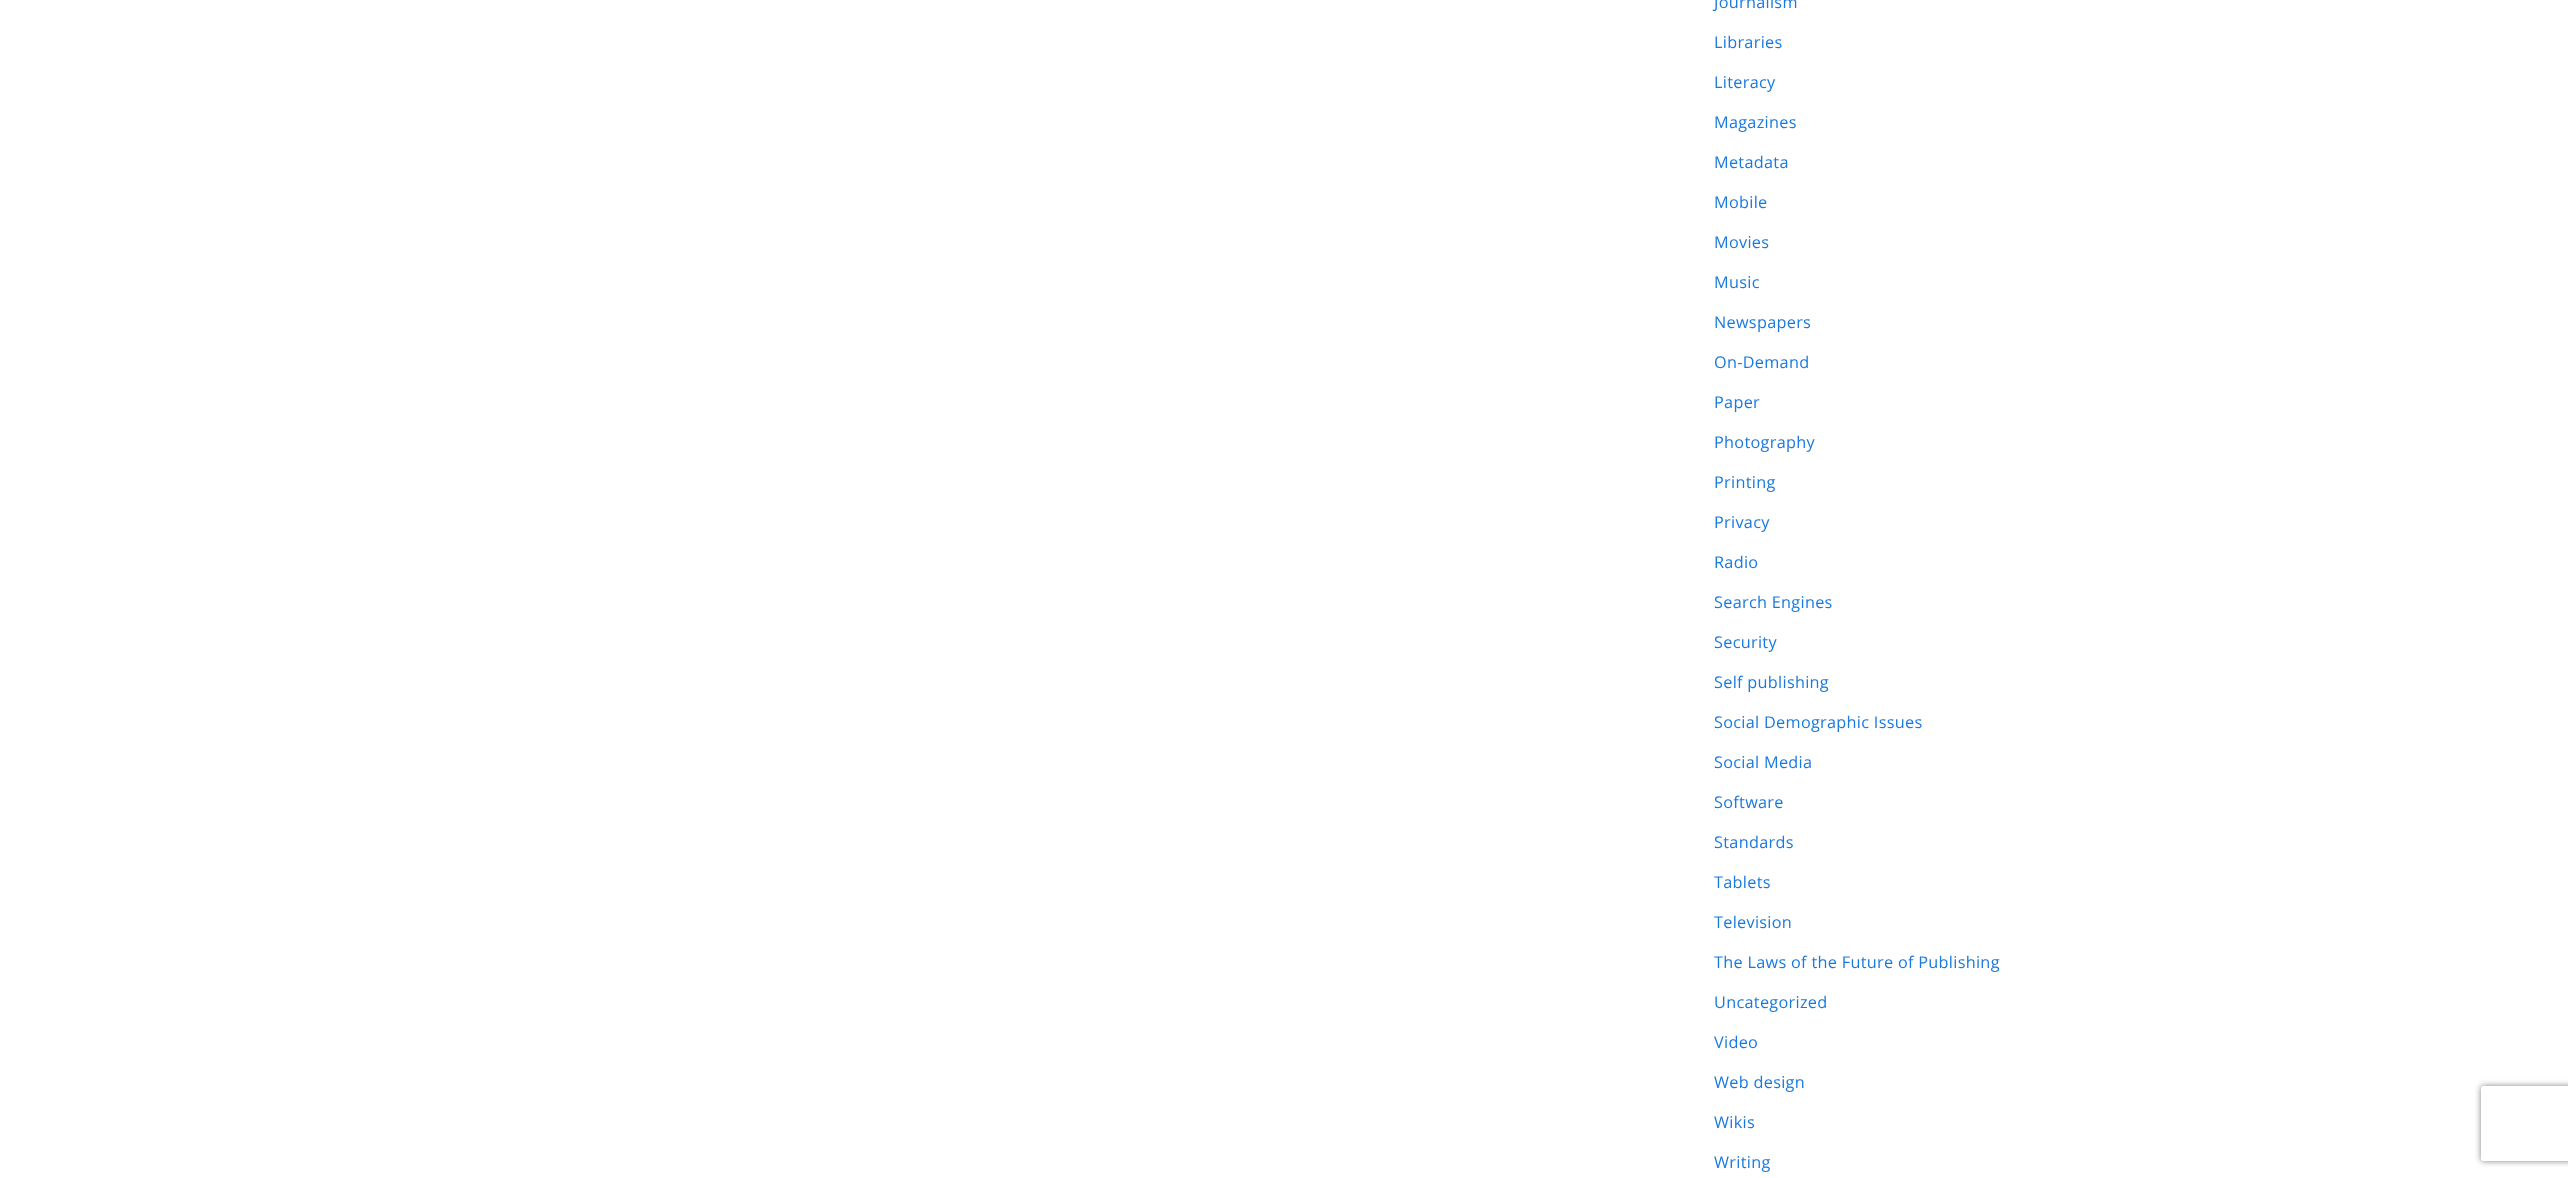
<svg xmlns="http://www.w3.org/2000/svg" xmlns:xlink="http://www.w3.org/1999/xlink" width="2568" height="1178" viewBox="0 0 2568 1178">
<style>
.cls-1{font:16.25px Open Sans;letter-spacing:0.3px;fill:#1879df}
</style>
<defs>
<clipPath id="clip1"><path d="M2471 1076H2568V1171H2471ZM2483.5 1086H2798.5C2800 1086 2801 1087 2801 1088.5V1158.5C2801 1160 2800 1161 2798.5 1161H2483.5C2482 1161 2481 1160 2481 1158.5V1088.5C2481 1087 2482 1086 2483.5 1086Z" clip-rule="evenodd"/></clipPath>
</defs>
<rect width="100%" height="100%" fill="#ffffff"/>
<g clip-path="url(#clip1)">
<rect fill="#808080" filter="blur(3px)" x="2481" y="1086" width="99" height="75" rx="2.5"/>
</g>
<text class="cls-1" x="1714" y="8">Journalism</text>
<text class="cls-1" x="1714" y="48">Libraries</text>
<text class="cls-1" x="1714" y="88">Literacy</text>
<text class="cls-1" x="1714" y="128">Magazines</text>
<text class="cls-1" x="1714" y="168">Metadata</text>
<text class="cls-1" x="1714" y="208">Mobile</text>
<text class="cls-1" x="1714" y="248">Movies</text>
<text class="cls-1" x="1714" y="288">Music</text>
<text class="cls-1" x="1714" y="328">Newspapers</text>
<text class="cls-1" x="1714" y="368">On-Demand</text>
<text class="cls-1" x="1714" y="408">Paper</text>
<text class="cls-1" x="1714" y="448">Photography</text>
<text class="cls-1" x="1714" y="488">Printing</text>
<text class="cls-1" x="1714" y="528">Privacy</text>
<text class="cls-1" x="1714" y="568">Radio</text>
<text class="cls-1" x="1714" y="608">Search Engines</text>
<text class="cls-1" x="1714" y="648">Security</text>
<text class="cls-1" x="1714" y="688">Self publishing</text>
<text class="cls-1" x="1714" y="728">Social Demographic Issues</text>
<text class="cls-1" x="1714" y="768">Social Media</text>
<text class="cls-1" x="1714" y="808">Software</text>
<text class="cls-1" x="1714" y="848">Standards</text>
<text class="cls-1" x="1714" y="888">Tablets</text>
<text class="cls-1" x="1714" y="928">Television</text>
<text class="cls-1" x="1714" y="968">The Laws of the Future of Publishing</text>
<text class="cls-1" x="1714" y="1008">Uncategorized</text>
<text class="cls-1" x="1714" y="1048">Video</text>
<text class="cls-1" x="1714" y="1088">Web design</text>
<text class="cls-1" x="1714" y="1128">Wikis</text>
<text class="cls-1" x="1714" y="1168">Writing</text>
</svg>
